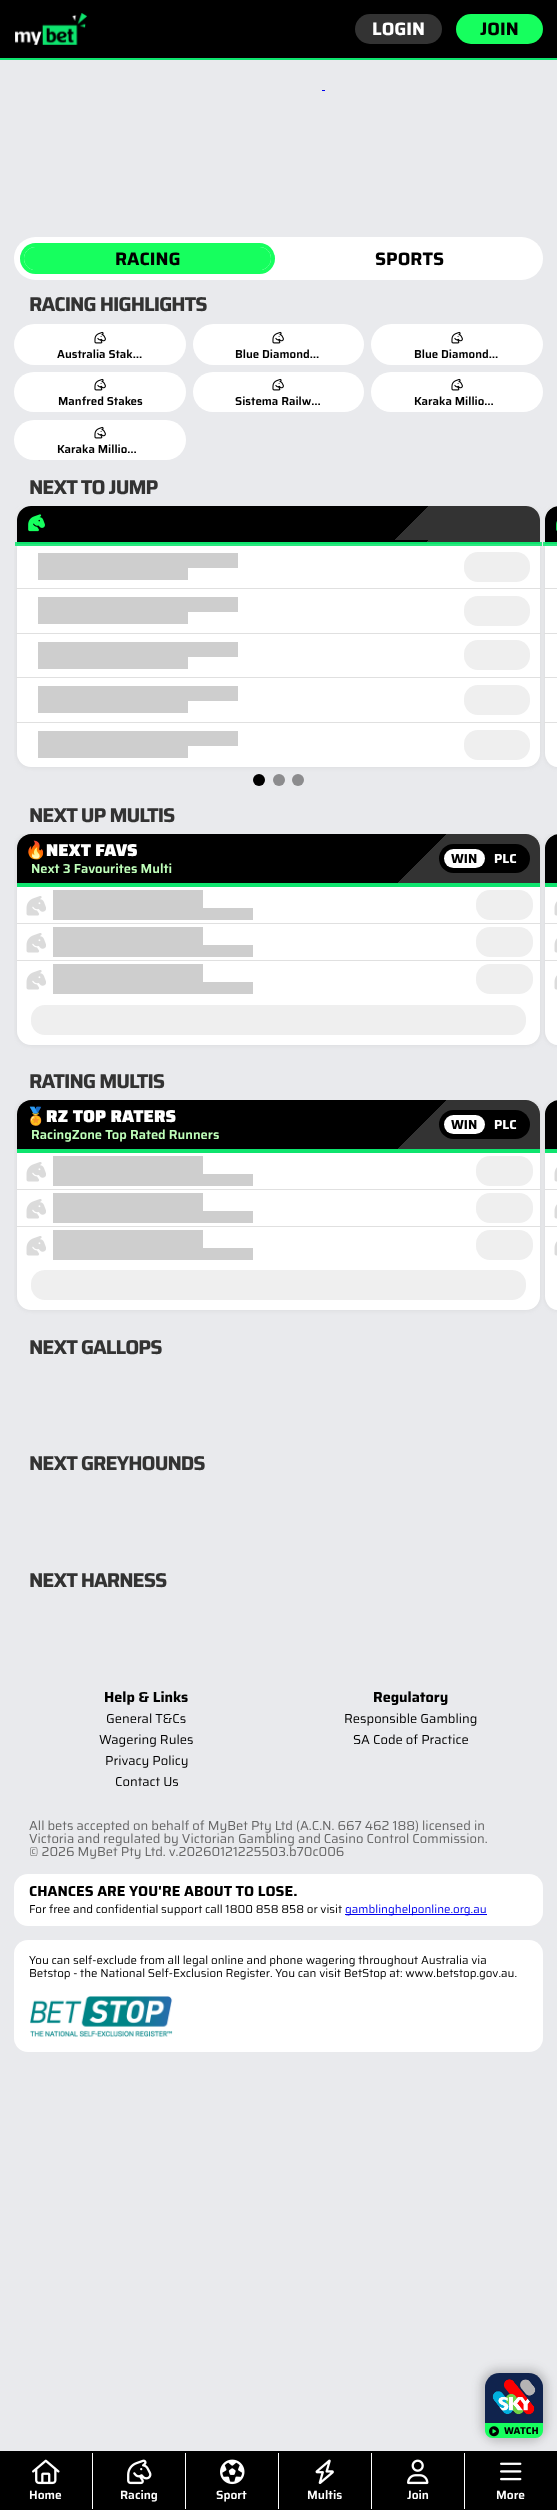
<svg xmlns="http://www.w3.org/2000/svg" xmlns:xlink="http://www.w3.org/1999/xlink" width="557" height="2510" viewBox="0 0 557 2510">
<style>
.cls-1{font:bold 18px Saira;fill:#ffffff}
.cls-2{font:bold 18px Saira;fill:#000000}
.cls-3{font:bold 20px Saira;letter-spacing:-1px;fill:#333333}
.cls-4{font:600 11.5px Saira;fill:#000000}
.cls-5{font:bold 17.25px Noto Color Emoji;fill:#ffffff}
.cls-6{font:900 17.25px Saira;fill:#ffffff}
.cls-7{font:bold 12.95px Saira;fill:#000000}
.cls-8{font:bold 12.95px Saira;fill:#ffffff}
.cls-9{font:600 12.95px Saira;fill:#bfffba}
.cls-10{font:bold 14.4px Saira;fill:#000000}
.cls-11{font:12.95px Saira;fill:#000000}
.cls-12{font:12.95px Saira;fill:#666666}
.cls-13{font:11.5px Saira;fill:#000000}
.cls-14{font:11.5px Saira;fill:#0000ee}
.cls-15{font:bold 10px Saira;fill:#000000}
.cls-16{font:600 12px Saira;fill:#ffffff}
</style>
<defs>
<clipPath id="clip1"><rect x="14" y="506" width="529" height="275"/></clipPath>
<linearGradient id="g1" gradientUnits="userSpaceOnUse" x1="139" y1="384" x2="418" y2="662"><stop offset="0.74" stop-color="#000000"/><stop offset="0.74" stop-color="#333333"/></linearGradient>
<linearGradient id="g2" gradientUnits="userSpaceOnUse" x1="139" y1="418" x2="418" y2="696"><stop offset="0.74" stop-color="#000000"/><stop offset="0.74" stop-color="#333333"/></linearGradient>
<clipPath id="clip2"><rect x="14" y="506" width="529" height="275"/></clipPath>
<linearGradient id="g3" gradientUnits="userSpaceOnUse" x1="-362" y1="603" x2="438" y2="603"><stop offset="0" stop-color="#e9eaed"/><stop offset="0.4" stop-color="#e9eaed"/><stop offset="0.5" stop-color="#cecece"/><stop offset="0.8" stop-color="#cecece"/><stop offset="1" stop-color="#e9eaed"/></linearGradient>
<linearGradient id="g4" gradientUnits="userSpaceOnUse" x1="-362" y1="618" x2="438" y2="618"><stop offset="0" stop-color="#e9eaed"/><stop offset="0.4" stop-color="#e9eaed"/><stop offset="0.5" stop-color="#cecece"/><stop offset="0.8" stop-color="#cecece"/><stop offset="1" stop-color="#e9eaed"/></linearGradient>
<linearGradient id="g5" gradientUnits="userSpaceOnUse" x1="-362" y1="647" x2="438" y2="647"><stop offset="0" stop-color="#e9eaed"/><stop offset="0.4" stop-color="#e9eaed"/><stop offset="0.5" stop-color="#cecece"/><stop offset="0.8" stop-color="#cecece"/><stop offset="1" stop-color="#e9eaed"/></linearGradient>
<linearGradient id="g6" gradientUnits="userSpaceOnUse" x1="-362" y1="662" x2="438" y2="662"><stop offset="0" stop-color="#e9eaed"/><stop offset="0.4" stop-color="#e9eaed"/><stop offset="0.5" stop-color="#cecece"/><stop offset="0.8" stop-color="#cecece"/><stop offset="1" stop-color="#e9eaed"/></linearGradient>
<linearGradient id="g7" gradientUnits="userSpaceOnUse" x1="-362" y1="692" x2="438" y2="692"><stop offset="0" stop-color="#e9eaed"/><stop offset="0.4" stop-color="#e9eaed"/><stop offset="0.5" stop-color="#cecece"/><stop offset="0.8" stop-color="#cecece"/><stop offset="1" stop-color="#e9eaed"/></linearGradient>
<linearGradient id="g8" gradientUnits="userSpaceOnUse" x1="-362" y1="707" x2="438" y2="707"><stop offset="0" stop-color="#e9eaed"/><stop offset="0.4" stop-color="#e9eaed"/><stop offset="0.5" stop-color="#cecece"/><stop offset="0.8" stop-color="#cecece"/><stop offset="1" stop-color="#e9eaed"/></linearGradient>
<linearGradient id="g9" gradientUnits="userSpaceOnUse" x1="-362" y1="736" x2="438" y2="736"><stop offset="0" stop-color="#e9eaed"/><stop offset="0.4" stop-color="#e9eaed"/><stop offset="0.5" stop-color="#cecece"/><stop offset="0.8" stop-color="#cecece"/><stop offset="1" stop-color="#e9eaed"/></linearGradient>
<linearGradient id="g10" gradientUnits="userSpaceOnUse" x1="-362" y1="751" x2="438" y2="751"><stop offset="0" stop-color="#e9eaed"/><stop offset="0.4" stop-color="#e9eaed"/><stop offset="0.5" stop-color="#cecece"/><stop offset="0.8" stop-color="#cecece"/><stop offset="1" stop-color="#e9eaed"/></linearGradient>
<linearGradient id="g11" gradientUnits="userSpaceOnUse" x1="-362" y1="781" x2="438" y2="781"><stop offset="0" stop-color="#e9eaed"/><stop offset="0.4" stop-color="#e9eaed"/><stop offset="0.5" stop-color="#cecece"/><stop offset="0.8" stop-color="#cecece"/><stop offset="1" stop-color="#e9eaed"/></linearGradient>
<linearGradient id="g12" gradientUnits="userSpaceOnUse" x1="-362" y1="796" x2="438" y2="796"><stop offset="0" stop-color="#e9eaed"/><stop offset="0.4" stop-color="#e9eaed"/><stop offset="0.5" stop-color="#cecece"/><stop offset="0.8" stop-color="#cecece"/><stop offset="1" stop-color="#e9eaed"/></linearGradient>
<clipPath id="clip3"><rect x="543" y="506" width="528" height="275"/></clipPath>
<linearGradient id="g13" gradientUnits="userSpaceOnUse" x1="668" y1="384" x2="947" y2="663"><stop offset="0.74" stop-color="#000000"/><stop offset="0.74" stop-color="#333333"/></linearGradient>
<linearGradient id="g14" gradientUnits="userSpaceOnUse" x1="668" y1="418" x2="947" y2="697"><stop offset="0.74" stop-color="#000000"/><stop offset="0.74" stop-color="#333333"/></linearGradient>
<clipPath id="clip4"><rect x="543" y="506" width="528" height="275"/></clipPath>
<clipPath id="clip5"><rect x="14" y="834" width="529" height="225"/></clipPath>
<linearGradient id="g15" gradientUnits="userSpaceOnUse" x1="135" y1="716" x2="422" y2="1002"><stop offset="0.75" stop-color="#000000"/><stop offset="0.75" stop-color="#333333"/></linearGradient>
<linearGradient id="g16" gradientUnits="userSpaceOnUse" x1="-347" y1="940" x2="453" y2="940"><stop offset="0" stop-color="#e9eaed"/><stop offset="0.4" stop-color="#e9eaed"/><stop offset="0.5" stop-color="#cecece"/><stop offset="0.8" stop-color="#cecece"/><stop offset="1" stop-color="#e9eaed"/></linearGradient>
<linearGradient id="g17" gradientUnits="userSpaceOnUse" x1="-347" y1="958" x2="453" y2="958"><stop offset="0" stop-color="#e9eaed"/><stop offset="0.4" stop-color="#e9eaed"/><stop offset="0.5" stop-color="#cecece"/><stop offset="0.8" stop-color="#cecece"/><stop offset="1" stop-color="#e9eaed"/></linearGradient>
<linearGradient id="g18" gradientUnits="userSpaceOnUse" x1="-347" y1="977" x2="453" y2="977"><stop offset="0" stop-color="#e9eaed"/><stop offset="0.4" stop-color="#e9eaed"/><stop offset="0.5" stop-color="#cecece"/><stop offset="0.8" stop-color="#cecece"/><stop offset="1" stop-color="#e9eaed"/></linearGradient>
<linearGradient id="g19" gradientUnits="userSpaceOnUse" x1="-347" y1="995" x2="453" y2="995"><stop offset="0" stop-color="#e9eaed"/><stop offset="0.4" stop-color="#e9eaed"/><stop offset="0.5" stop-color="#cecece"/><stop offset="0.8" stop-color="#cecece"/><stop offset="1" stop-color="#e9eaed"/></linearGradient>
<linearGradient id="g20" gradientUnits="userSpaceOnUse" x1="-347" y1="1014" x2="453" y2="1014"><stop offset="0" stop-color="#e9eaed"/><stop offset="0.4" stop-color="#e9eaed"/><stop offset="0.5" stop-color="#cecece"/><stop offset="0.8" stop-color="#cecece"/><stop offset="1" stop-color="#e9eaed"/></linearGradient>
<linearGradient id="g21" gradientUnits="userSpaceOnUse" x1="-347" y1="1032" x2="453" y2="1032"><stop offset="0" stop-color="#e9eaed"/><stop offset="0.4" stop-color="#e9eaed"/><stop offset="0.5" stop-color="#cecece"/><stop offset="0.8" stop-color="#cecece"/><stop offset="1" stop-color="#e9eaed"/></linearGradient>
<clipPath id="clip6"><rect x="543" y="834" width="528" height="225"/></clipPath>
<linearGradient id="g22" gradientUnits="userSpaceOnUse" x1="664" y1="716" x2="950" y2="1002"><stop offset="0.75" stop-color="#000000"/><stop offset="0.75" stop-color="#333333"/></linearGradient>
<clipPath id="clip7"><rect x="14" y="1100" width="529" height="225"/></clipPath>
<linearGradient id="g23" gradientUnits="userSpaceOnUse" x1="135" y1="982" x2="422" y2="1268"><stop offset="0.75" stop-color="#000000"/><stop offset="0.75" stop-color="#333333"/></linearGradient>
<linearGradient id="g24" gradientUnits="userSpaceOnUse" x1="-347" y1="1206" x2="453" y2="1206"><stop offset="0" stop-color="#e9eaed"/><stop offset="0.4" stop-color="#e9eaed"/><stop offset="0.5" stop-color="#cecece"/><stop offset="0.8" stop-color="#cecece"/><stop offset="1" stop-color="#e9eaed"/></linearGradient>
<linearGradient id="g25" gradientUnits="userSpaceOnUse" x1="-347" y1="1224" x2="453" y2="1224"><stop offset="0" stop-color="#e9eaed"/><stop offset="0.4" stop-color="#e9eaed"/><stop offset="0.5" stop-color="#cecece"/><stop offset="0.8" stop-color="#cecece"/><stop offset="1" stop-color="#e9eaed"/></linearGradient>
<linearGradient id="g26" gradientUnits="userSpaceOnUse" x1="-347" y1="1243" x2="453" y2="1243"><stop offset="0" stop-color="#e9eaed"/><stop offset="0.4" stop-color="#e9eaed"/><stop offset="0.5" stop-color="#cecece"/><stop offset="0.8" stop-color="#cecece"/><stop offset="1" stop-color="#e9eaed"/></linearGradient>
<linearGradient id="g27" gradientUnits="userSpaceOnUse" x1="-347" y1="1261" x2="453" y2="1261"><stop offset="0" stop-color="#e9eaed"/><stop offset="0.4" stop-color="#e9eaed"/><stop offset="0.5" stop-color="#cecece"/><stop offset="0.8" stop-color="#cecece"/><stop offset="1" stop-color="#e9eaed"/></linearGradient>
<linearGradient id="g28" gradientUnits="userSpaceOnUse" x1="-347" y1="1280" x2="453" y2="1280"><stop offset="0" stop-color="#e9eaed"/><stop offset="0.4" stop-color="#e9eaed"/><stop offset="0.5" stop-color="#cecece"/><stop offset="0.8" stop-color="#cecece"/><stop offset="1" stop-color="#e9eaed"/></linearGradient>
<linearGradient id="g29" gradientUnits="userSpaceOnUse" x1="-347" y1="1298" x2="453" y2="1298"><stop offset="0" stop-color="#e9eaed"/><stop offset="0.4" stop-color="#e9eaed"/><stop offset="0.5" stop-color="#cecece"/><stop offset="0.8" stop-color="#cecece"/><stop offset="1" stop-color="#e9eaed"/></linearGradient>
<clipPath id="clip8"><rect x="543" y="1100" width="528" height="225"/></clipPath>
<linearGradient id="g30" gradientUnits="userSpaceOnUse" x1="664" y1="982" x2="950" y2="1268"><stop offset="0.75" stop-color="#000000"/><stop offset="0.75" stop-color="#333333"/></linearGradient>
</defs>
<rect width="100%" height="100%" fill="#e9eaed"/>
<rect fill="#000000" x="0" y="0" width="557" height="58"/>
<image xlink:href="image0.png" x="15" y="13" width="72" height="32"/>
<rect fill="#333333" x="355" y="14" width="87" height="30" rx="15"/>
<rect fill="#16ff5e" x="456" y="14" width="87" height="30" rx="15"/>
<rect fill="none" stroke="#0ee46e" stroke-width="2" x="-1" y="-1" width="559" height="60"/>
<rect fill="#0000ee" x="322" y="90" width="3" height="1"/>
<rect fill="#ffffff" x="14" y="237" width="529" height="43" rx="21.5"/>
<rect fill="#16ff5e" x="24" y="247" width="247" height="23" rx="11.5"/>
<rect fill="none" stroke="#16ff5e" stroke-width="4" x="22" y="245" width="251" height="27" rx="13.5"/>
<rect fill="#ffffff" x="14" y="324" width="172" height="41" rx="20.5"/>
<image xlink:href="image1.png" x="94" y="331" width="12" height="13"/>
<rect fill="#ffffff" x="193" y="324" width="171" height="41" rx="20.5"/>
<image xlink:href="image1.png" x="272" y="331" width="12" height="13"/>
<rect fill="#ffffff" x="371" y="324" width="172" height="41" rx="20.5"/>
<image xlink:href="image1.png" x="451" y="331" width="12" height="13"/>
<rect fill="#ffffff" x="14" y="372" width="172" height="40" rx="20"/>
<image xlink:href="image1.png" x="94" y="378" width="12" height="13"/>
<rect fill="#ffffff" x="193" y="372" width="171" height="40" rx="20"/>
<image xlink:href="image1.png" x="272" y="378" width="12" height="13"/>
<rect fill="#ffffff" x="371" y="372" width="172" height="40" rx="20"/>
<image xlink:href="image1.png" x="451" y="378" width="12" height="13"/>
<rect fill="#ffffff" x="14" y="420" width="172" height="40" rx="20"/>
<image xlink:href="image1.png" x="94" y="426" width="12" height="13"/>
<circle fill="#000000" cx="259" cy="780" r="6"/>
<g clip-path="url(#clip1)">
<rect fill="#888888" fill-opacity="0.19" filter="blur(2.5px)" x="17" y="506" width="523" height="261" rx="14"/>
</g>
<rect fill="#ffffff" x="17" y="506" width="523" height="261" rx="14"/>
<path fill="url(#g1)" d="M31 506H526C533.5 506 540 512.5 540 520V540H17V520C17 512.5 23.5 506 31 506Z"/>
<rect fill="url(#g2)" x="17" y="540" width="523" height="2"/>
<rect fill="#0ee46e" x="15" y="542" width="527" height="4"/>
<g clip-path="url(#clip2)">
<path fill="none" stroke="#ffffff" stroke-opacity="0.12" stroke-width="4" d="M31 504H526C535 504 542 511 542 520V546H15V520C15 511 22 504 31 504Z"/>
</g>
<image xlink:href="image2.png" x="28" y="514" width="17" height="18"/>
<rect fill="#e0e0e0" x="16" y="588" width="525" height="1"/>
<rect fill="#efefef" x="464" y="552" width="66" height="30" rx="14"/>
<rect fill="url(#g3)" x="38" y="553" width="200" height="15"/>
<rect fill="url(#g4)" x="38" y="568" width="150" height="12"/>
<rect fill="#e0e0e0" x="16" y="633" width="525" height="1"/>
<rect fill="#efefef" x="464" y="596" width="66" height="30" rx="14"/>
<rect fill="url(#g5)" x="38" y="597" width="200" height="15"/>
<rect fill="url(#g6)" x="38" y="612" width="150" height="12"/>
<rect fill="#e0e0e0" x="16" y="677" width="525" height="1"/>
<rect fill="#efefef" x="464" y="640" width="66" height="30" rx="14"/>
<rect fill="url(#g7)" x="38" y="642" width="200" height="15"/>
<rect fill="url(#g8)" x="38" y="657" width="150" height="12"/>
<rect fill="#e0e0e0" x="16" y="722" width="525" height="1"/>
<rect fill="#efefef" x="464" y="685" width="66" height="30" rx="14"/>
<rect fill="url(#g9)" x="38" y="686" width="200" height="15"/>
<rect fill="url(#g10)" x="38" y="701" width="150" height="12"/>
<rect fill="url(#g11)" x="38" y="731" width="200" height="15"/>
<rect fill="url(#g12)" x="38" y="746" width="150" height="12"/>
<rect fill="#efefef" x="464" y="730" width="66" height="30" rx="14"/>
<g clip-path="url(#clip3)">
<rect fill="#888888" fill-opacity="0.19" filter="blur(2.5px)" x="545" y="506" width="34" height="261" rx="14"/>
</g>
<rect fill="#ffffff" x="545" y="506" width="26" height="261" rx="14"/>
<path fill="url(#g13)" d="M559 506H557C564.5 506 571 512.5 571 520V540H545V520C545 512.5 551.5 506 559 506Z"/>
<rect fill="url(#g14)" x="545" y="540" width="12" height="2"/>
<rect fill="#0ee46e" x="543" y="542" width="14" height="4"/>
<g clip-path="url(#clip4)">
<path fill="none" stroke="#ffffff" stroke-opacity="0.12" stroke-width="4" d="M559 504H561C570 504 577 511 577 520V546H543V520C543 511 550 504 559 504Z"/>
</g>
<image xlink:href="image3.png" x="556" y="521" width="1" height="10"/>
<rect fill="#e0e0e0" x="544" y="588" width="13" height="1"/>
<rect fill="#e0e0e0" x="544" y="633" width="13" height="1"/>
<rect fill="#e0e0e0" x="544" y="677" width="13" height="1"/>
<rect fill="#e0e0e0" x="544" y="722" width="13" height="1"/>
<circle fill="#8c8c8e" cx="279" cy="780" r="6"/>
<circle fill="#8c8c8e" cx="298" cy="780" r="6"/>
<g clip-path="url(#clip5)">
<rect fill="#888888" fill-opacity="0.19" filter="blur(2.5px)" x="17" y="834" width="523" height="211" rx="14"/>
</g>
<rect fill="#ffffff" x="17" y="834" width="523" height="211" rx="14"/>
<path fill="url(#g15)" d="M31 834H526C533.5 834 540 840.5 540 848V883H17V848C17 840.5 23.5 834 31 834Z"/>
<rect fill="#0ee46e" x="17" y="883" width="523" height="4"/>
<rect fill="#000000" x="439" y="844" width="91" height="29" rx="14.5"/>
<rect fill="#ffffff" x="444" y="849" width="41" height="19" rx="9.5"/>
<rect fill="#e0e0e0" x="17" y="923" width="523" height="1"/>
<image xlink:href="image4.png" x="26" y="896" width="20" height="20"/>
<rect fill="url(#g16)" x="53" y="890" width="150" height="18"/>
<rect fill="url(#g17)" x="53" y="908" width="200" height="12"/>
<rect fill="#efefef" x="476" y="890" width="57" height="30" rx="14"/>
<rect fill="#e0e0e0" x="17" y="960" width="523" height="1"/>
<image xlink:href="image4.png" x="26" y="933" width="20" height="20"/>
<rect fill="url(#g18)" x="53" y="927" width="150" height="18"/>
<rect fill="url(#g19)" x="53" y="945" width="200" height="12"/>
<rect fill="#efefef" x="476" y="927" width="57" height="30" rx="14"/>
<image xlink:href="image4.png" x="26" y="970" width="20" height="20"/>
<rect fill="url(#g20)" x="53" y="964" width="150" height="18"/>
<rect fill="url(#g21)" x="53" y="982" width="200" height="12"/>
<rect fill="#efefef" x="476" y="964" width="57" height="30" rx="14"/>
<rect fill="#efefef" x="31" y="1005" width="495" height="30" rx="14"/>
<g clip-path="url(#clip6)">
<rect fill="#888888" fill-opacity="0.19" filter="blur(2.5px)" x="545" y="834" width="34" height="211" rx="14"/>
</g>
<rect fill="#ffffff" x="545" y="834" width="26" height="211" rx="14"/>
<path fill="url(#g22)" d="M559 834H557C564.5 834 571 840.5 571 848V883H545V848C545 840.5 551.5 834 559 834Z"/>
<rect fill="#0ee46e" x="545" y="883" width="12" height="4"/>
<rect fill="#e0e0e0" x="545" y="923" width="12" height="1"/>
<image xlink:href="image5.png" x="554" y="901" width="3" height="15"/>
<rect fill="#e0e0e0" x="545" y="960" width="12" height="1"/>
<image xlink:href="image5.png" x="554" y="938" width="3" height="15"/>
<image xlink:href="image5.png" x="554" y="975" width="3" height="15"/>
<g clip-path="url(#clip7)">
<rect fill="#888888" fill-opacity="0.19" filter="blur(2.5px)" x="17" y="1100" width="523" height="210" rx="14"/>
</g>
<rect fill="#ffffff" x="17" y="1100" width="523" height="210" rx="14"/>
<path fill="url(#g23)" d="M31 1100H526C533.5 1100 540 1106.5 540 1114V1149H17V1114C17 1106.5 23.5 1100 31 1100Z"/>
<rect fill="#0ee46e" x="17" y="1149" width="523" height="4"/>
<rect fill="#000000" x="439" y="1110" width="91" height="29" rx="14.5"/>
<rect fill="#ffffff" x="444" y="1115" width="41" height="19" rx="9.5"/>
<rect fill="#e0e0e0" x="17" y="1189" width="523" height="1"/>
<image xlink:href="image4.png" x="26" y="1162" width="20" height="20"/>
<rect fill="url(#g24)" x="53" y="1156" width="150" height="18"/>
<rect fill="url(#g25)" x="53" y="1174" width="200" height="12"/>
<rect fill="#efefef" x="476" y="1156" width="57" height="30" rx="14"/>
<rect fill="#e0e0e0" x="17" y="1226" width="523" height="1"/>
<image xlink:href="image4.png" x="26" y="1199" width="20" height="20"/>
<rect fill="url(#g26)" x="53" y="1193" width="150" height="18"/>
<rect fill="url(#g27)" x="53" y="1211" width="200" height="12"/>
<rect fill="#efefef" x="476" y="1193" width="57" height="30" rx="14"/>
<image xlink:href="image4.png" x="26" y="1236" width="20" height="20"/>
<rect fill="url(#g28)" x="53" y="1230" width="150" height="18"/>
<rect fill="url(#g29)" x="53" y="1248" width="200" height="12"/>
<rect fill="#efefef" x="476" y="1230" width="57" height="30" rx="14"/>
<rect fill="#efefef" x="31" y="1270" width="495" height="30" rx="14"/>
<g clip-path="url(#clip8)">
<rect fill="#888888" fill-opacity="0.19" filter="blur(2.5px)" x="545" y="1100" width="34" height="210" rx="14"/>
</g>
<rect fill="#ffffff" x="545" y="1100" width="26" height="210" rx="14"/>
<path fill="url(#g30)" d="M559 1100H557C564.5 1100 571 1106.5 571 1114V1149H545V1114C545 1106.5 551.5 1100 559 1100Z"/>
<rect fill="#0ee46e" x="545" y="1149" width="12" height="4"/>
<rect fill="#e0e0e0" x="545" y="1189" width="12" height="1"/>
<image xlink:href="image5.png" x="554" y="1167" width="3" height="15"/>
<rect fill="#e0e0e0" x="545" y="1226" width="12" height="1"/>
<image xlink:href="image5.png" x="554" y="1204" width="3" height="15"/>
<image xlink:href="image5.png" x="554" y="1241" width="3" height="15"/>
<rect fill="#ffffff" x="14" y="1874" width="529" height="52" rx="14"/>
<rect fill="#0000ee" x="345" y="1914" width="142" height="1"/>
<rect fill="#ffffff" x="14" y="1940" width="529" height="112" rx="14"/>
<image xlink:href="image6.png" x="30" y="1996" width="143" height="41"/>
<rect fill="#333333" fill-opacity="0.25" filter="blur(5px)" x="481" y="2369" width="66" height="73" rx="18"/>
<image xlink:href="image7.png" x="485" y="2373" width="58" height="50"/>
<path fill="#16ff5e" d="M485 2423H543V2430.5C543 2434.5 539.5 2438 535.5 2438H492.5C488.5 2438 485 2434.5 485 2430.5Z"/>
<image xlink:href="image8.png" x="489" y="2426" width="10" height="11"/>
<rect fill="#000000" x="0" y="2451" width="557" height="59"/>
<image xlink:href="image9.png" x="32" y="2459" width="28" height="26"/>
<rect fill="#ffffff" x="92" y="2453" width="1" height="56"/>
<image xlink:href="image10.png" x="127" y="2459" width="25" height="26"/>
<rect fill="#ffffff" x="185" y="2453" width="1" height="56"/>
<image xlink:href="image11.png" x="220" y="2459" width="25" height="26"/>
<rect fill="#ffffff" x="278" y="2453" width="1" height="56"/>
<image xlink:href="image12.png" x="315" y="2459" width="19" height="25"/>
<rect fill="#ffffff" x="371" y="2453" width="1" height="56"/>
<image xlink:href="image13.png" x="407" y="2459" width="22" height="26"/>
<rect fill="#ffffff" x="464" y="2453" width="1" height="56"/>
<image xlink:href="image14.png" x="500" y="2462" width="22" height="19"/>
<text class="cls-1" x="372" y="35">LOGIN</text>
<text class="cls-2" x="480" y="35">JOIN</text>
<text class="cls-2" x="115" y="265">RACING</text>
<text class="cls-2" x="375" y="265">SPORTS</text>
<text class="cls-3" x="29" y="311">RACING HIGHLIGHTS</text>
<text class="cls-4" x="57" y="358">Australia Stak…</text>
<text class="cls-4" x="235" y="358">Blue Diamond…</text>
<text class="cls-4" x="414" y="358">Blue Diamond…</text>
<text class="cls-4" x="58" y="405">Manfred Stakes</text>
<text class="cls-4" x="235" y="405">Sistema Railw…</text>
<text class="cls-4" x="414" y="405">Karaka Millio…</text>
<text class="cls-4" x="57" y="453">Karaka Millio…</text>
<text class="cls-3" x="29" y="494">NEXT TO JUMP</text>
<text class="cls-3" x="29" y="822">NEXT UP MULTIS</text>
<text class="cls-5" x="25" y="856">🔥</text>
<text class="cls-6" x="46" y="856">NEXT FAVS</text>
<text class="cls-7" x="451" y="863">WIN</text>
<text class="cls-8" x="494" y="863">PLC</text>
<text class="cls-9" x="31" y="873">Next 3 Favourites Multi</text>
<text class="cls-3" x="29" y="1088">RATING MULTIS</text>
<text class="cls-5" x="25" y="1122">🏅</text>
<text class="cls-6" x="46" y="1122">RZ TOP RATERS</text>
<text class="cls-7" x="451" y="1129">WIN</text>
<text class="cls-8" x="494" y="1129">PLC</text>
<text class="cls-9" x="31" y="1139">RacingZone Top Rated Runners</text>
<text class="cls-3" x="29" y="1354">NEXT GALLOPS</text>
<text class="cls-3" x="29" y="1470">NEXT GREYHOUNDS</text>
<text class="cls-3" x="29" y="1587">NEXT HARNESS</text>
<text class="cls-10" x="104" y="1702">Help &amp; Links</text>
<text class="cls-11" x="106" y="1723">General T&amp;Cs</text>
<text class="cls-11" x="99" y="1744">Wagering Rules</text>
<text class="cls-11" x="105" y="1765">Privacy Policy</text>
<text class="cls-11" x="115" y="1786">Contact Us</text>
<text class="cls-10" x="373" y="1702">Regulatory</text>
<text class="cls-11" x="344" y="1723">Responsible Gambling</text>
<text class="cls-11" x="353" y="1744">SA Code of Practice</text>
<text class="cls-12"><tspan x="29" y="1830">All bets accepted on behalf of MyBet Pty Ltd (A.C.N. 667 462 188) licensed in</tspan><tspan x="29" y="1843">Victoria and regulated by Victorian Gambling and Casino Control Commission.</tspan><tspan x="29" y="1856">© 2026 MyBet Pty Ltd. v.20260121225503.b70c006</tspan></text>
<text class="cls-10" x="29" y="1896">CHANCES ARE YOU'RE ABOUT TO LOSE.</text>
<text class="cls-13" x="29" y="1913">For free and confidential support call 1800 858 858 or visit</text>
<text class="cls-14" x="345" y="1913">gamblinghelponline.org.au</text>
<text class="cls-13"><tspan x="29" y="1964">You can self-exclude from all legal online and phone wagering throughout Australia via</tspan><tspan x="29" y="1977">Betstop - the National Self-Exclusion Register. You can visit BetStop at: www.betstop.gov.au.</tspan></text>
<text class="cls-15" x="504" y="2434">WATCH</text>
<text class="cls-16" x="29" y="2499">Home</text>
<text class="cls-16" x="120" y="2499">Racing</text>
<text class="cls-16" x="216" y="2499">Sport</text>
<text class="cls-16" x="307" y="2499">Multis</text>
<text class="cls-16" x="407" y="2499">Join</text>
<text class="cls-16" x="496" y="2499">More</text>
</svg>
